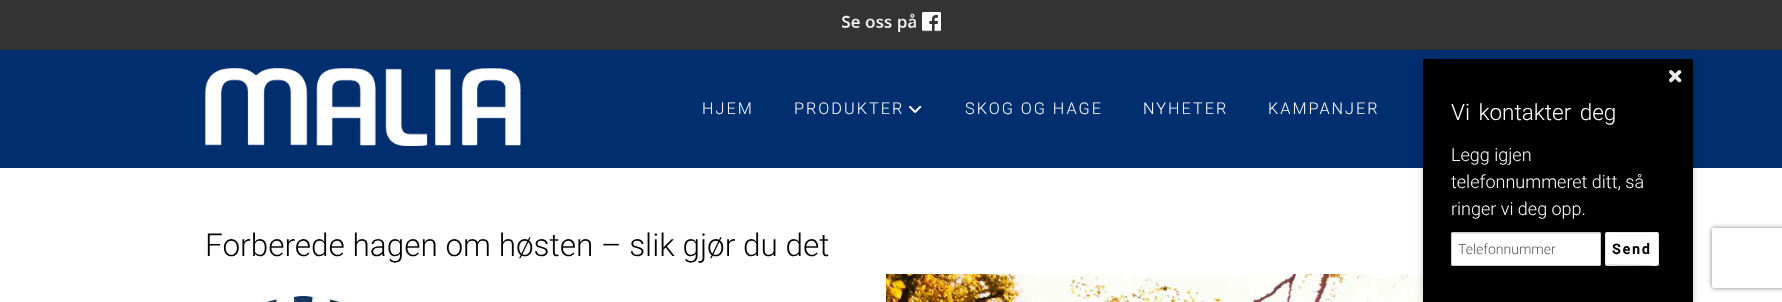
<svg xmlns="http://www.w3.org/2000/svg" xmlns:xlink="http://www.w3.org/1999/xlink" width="1782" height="302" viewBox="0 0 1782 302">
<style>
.cls-1{font:300 16.25px Roboto;letter-spacing:2px;fill:#ffffff}
.cls-2{font:300 31.5px Roboto;fill:#000000}
.cls-3{font:300 22.5px Roboto;fill:#ffffff}
.cls-4{font:300 18px Roboto;fill:#ffffff}
.cls-5{font:300 14px Roboto;fill:#555555}
.cls-6{font:bold 14px Roboto;letter-spacing:2px;fill:#000000}
</style>
<defs>
<clipPath id="clip1"><path d="M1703 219H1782V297H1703ZM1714 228H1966C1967 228 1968 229 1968 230V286C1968 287 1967 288 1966 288H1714C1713 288 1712 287 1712 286V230C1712 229 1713 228 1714 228Z" clip-rule="evenodd"/></clipPath>
</defs>
<rect width="100%" height="100%" fill="#012e6e"/>
<image xlink:href="image0.png" x="205" y="68" width="316" height="78"/>
<image xlink:href="image1.png" x="909" y="105" width="13" height="8"/>
<rect fill="#ffffff" x="0" y="168" width="1782" height="134"/>
<image xlink:href="image4.png" x="886" y="274" width="537" height="28"/>
<rect fill="#000000" fill-opacity="0.2" filter="blur(4.5px)" x="1423" y="62" width="270" height="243" rx="3"/>
<rect fill="#333333" x="0" y="0" width="1782" height="50"/>
<image xlink:href="image2.png" x="842" y="12" width="99" height="20"/>
<image xlink:href="image3.png" x="261" y="296" width="88" height="6"/>
<path fill="#000000" d="M1426 59H1690C1691.5 59 1693 60.5 1693 62V302H1423V62C1423 60.5 1424.5 59 1426 59Z"/>
<path fill="#000000" fill-rule="evenodd" d="M1426 59H1690C1692 59 1693 60 1693 62V302H1423V62C1423 60 1424 59 1426 59ZM1426 60H1690C1691 60 1692 61 1692 62V302H1424V62C1424 61 1425 60 1426 60Z"/>
<image xlink:href="image5.png" x="1669" y="70" width="13" height="13"/>
<rect fill="#ffffff" x="1451" y="232" width="150" height="34" rx="2"/>
<path fill="#ececec" d="M1453 234H1599C1600 234 1600 234 1600 235V233H1453C1452 233 1452 234 1452 235C1452 234 1452 234 1453 234Z"/>
<rect fill="none" stroke="#cccccc" x="1451.5" y="232.5" width="149" height="33" rx="1.5"/>
<rect fill="#ffffff" x="1605" y="232" width="54" height="34" rx="2"/>
<path fill="none" stroke="#000000" stroke-opacity="0.25" d="M1658 265C1656 267.5 1652 265.5 1648.5 265.5L1606 265"/>
<path fill="none" stroke="#000000" stroke-opacity="0.1" d="M1606 265C1604.5 263.5 1605.5 251.5 1605.5 249V239C1605.5 230 1605 232.5 1615.5 232.5H1648.5C1659 232.5 1658.5 230 1658.5 239V249C1658.5 251.5 1659.5 263.5 1658 265"/>
<g clip-path="url(#clip1)">
<rect fill="#808080" filter="blur(2.5px)" x="1712" y="228" width="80" height="60" rx="2"/>
</g>
<text class="cls-1" x="702" y="114">HJEM</text>
<text class="cls-1" x="794" y="114">PRODUKTER</text>
<text class="cls-1" x="965" y="114">SKOG OG HAGE</text>
<text class="cls-1" x="1143" y="114">NYHETER</text>
<text class="cls-1" x="1268" y="114">KAMPANJER</text>
<text class="cls-2" x="205" y="256">Forberede hagen om høsten – slik gjør du det</text>
<text class="cls-3" x="1451" y="120" word-spacing="3">Vi kontakter deg</text>
<text class="cls-4"><tspan x="1451" y="161">Legg igjen</tspan><tspan x="1451" y="188">telefonnummeret ditt, så</tspan><tspan x="1451" y="215">ringer vi deg opp.</tspan></text>
<text class="cls-5" x="1458" y="254">Telefonnummer</text>
<text class="cls-6" x="1612" y="254">Send</text>
</svg>
